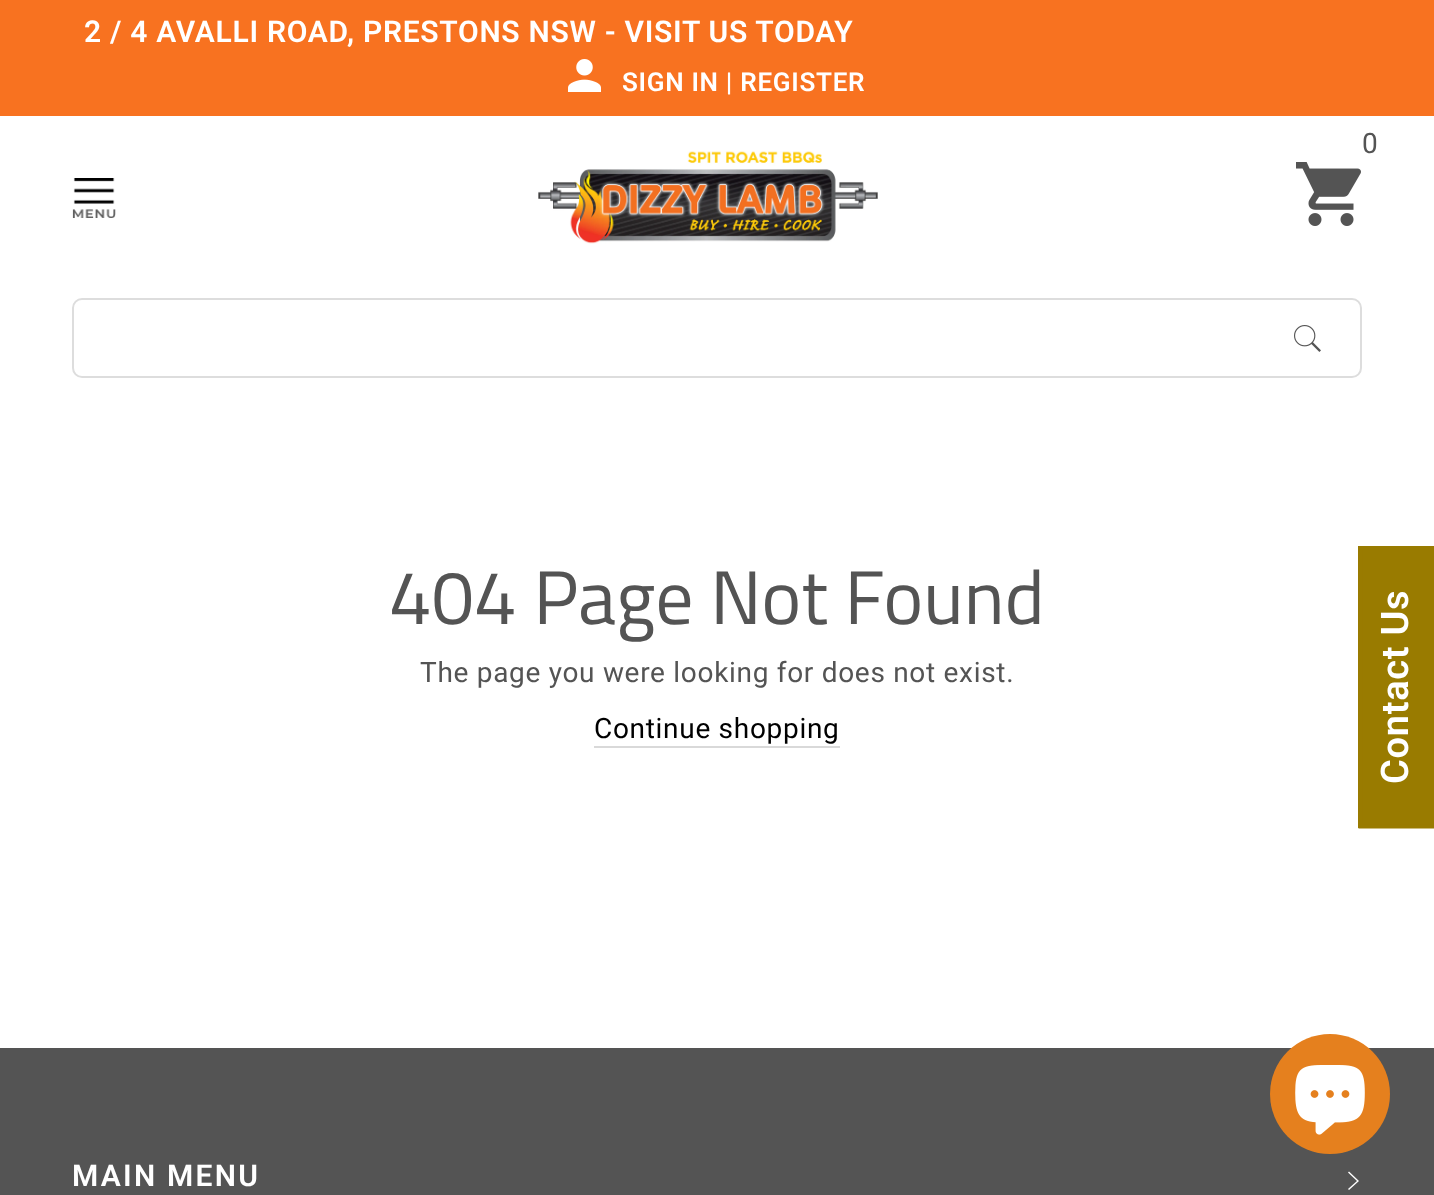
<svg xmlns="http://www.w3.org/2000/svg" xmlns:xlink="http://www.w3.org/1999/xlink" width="1434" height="1195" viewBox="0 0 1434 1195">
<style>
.cls-1{font:600 30px Roboto;letter-spacing:0.7px;fill:#ffffff}
.cls-2{font:600 26px Roboto;letter-spacing:0.7px;fill:#ffffff}
.cls-3{font:28px Roboto;letter-spacing:0.7px;fill:#545454}
.cls-4{font:76px Titillium Web;fill:#545454}
.cls-5{font:28px Roboto;letter-spacing:0.7px;fill:#000000}
.cls-6{font:600 30px Roboto;letter-spacing:2.25px;fill:#ffffff}
.cls-7{font:600 38px Roboto;letter-spacing:0.7px;fill:#ffffff}
</style>
<rect width="100%" height="100%" fill="#ffffff"/>
<rect fill="#f87220" x="0" y="0" width="1434" height="116"/>
<image xlink:href="image0.png" x="568" y="59" width="33" height="33"/>
<image xlink:href="image1.png" x="1296" y="162" width="65" height="64"/>
<image xlink:href="image2.png" x="72" y="178" width="44" height="40"/>
<image xlink:href="image3.png" x="538" y="151" width="340" height="93"/>
<rect fill="none" stroke="#dddddd" stroke-width="2" x="73" y="299" width="1288" height="78" rx="9"/>
<image xlink:href="image4.png" x="1294" y="325" width="27" height="27"/>
<rect fill="#d9d9d9" x="594" y="746" width="246" height="2"/>
<rect fill="#545454" x="0" y="1048" width="1434" height="147"/>
<path fill="#ffffff" d="M1348 1172.5L1349 1171.5L1359 1181L1349 1190L1348 1189L1357 1181Z"/>
<rect fill="#997b00" x="1358" y="546" width="74" height="282"/>
<path fill="none" stroke="#997b00" stroke-width="4" d="M1360.5 826.5V548H1434V826.5Z"/>
<circle fill="#e5801e" cx="1330" cy="1094" r="60"/>
<image xlink:href="image5.png" x="1295" y="1065" width="70" height="70"/>
<text class="cls-1" x="84" y="42">2 / 4 AVALLI ROAD, PRESTONS NSW - VISIT US TODAY</text>
<text class="cls-2" x="622" y="91">SIGN IN | REGISTER</text>
<text class="cls-3" x="1362" y="153">0</text>
<text class="cls-4" x="389" y="624">404 Page Not Found</text>
<text class="cls-3" x="420" y="682">The page you were looking for does not exist.</text>
<text class="cls-5" x="594" y="738">Continue shopping</text>
<text class="cls-6" x="72" y="1186">MAIN MENU</text>
<text class="cls-7" x="1408" y="784" transform="rotate(-90 1408 784)">Contact Us</text>
</svg>
